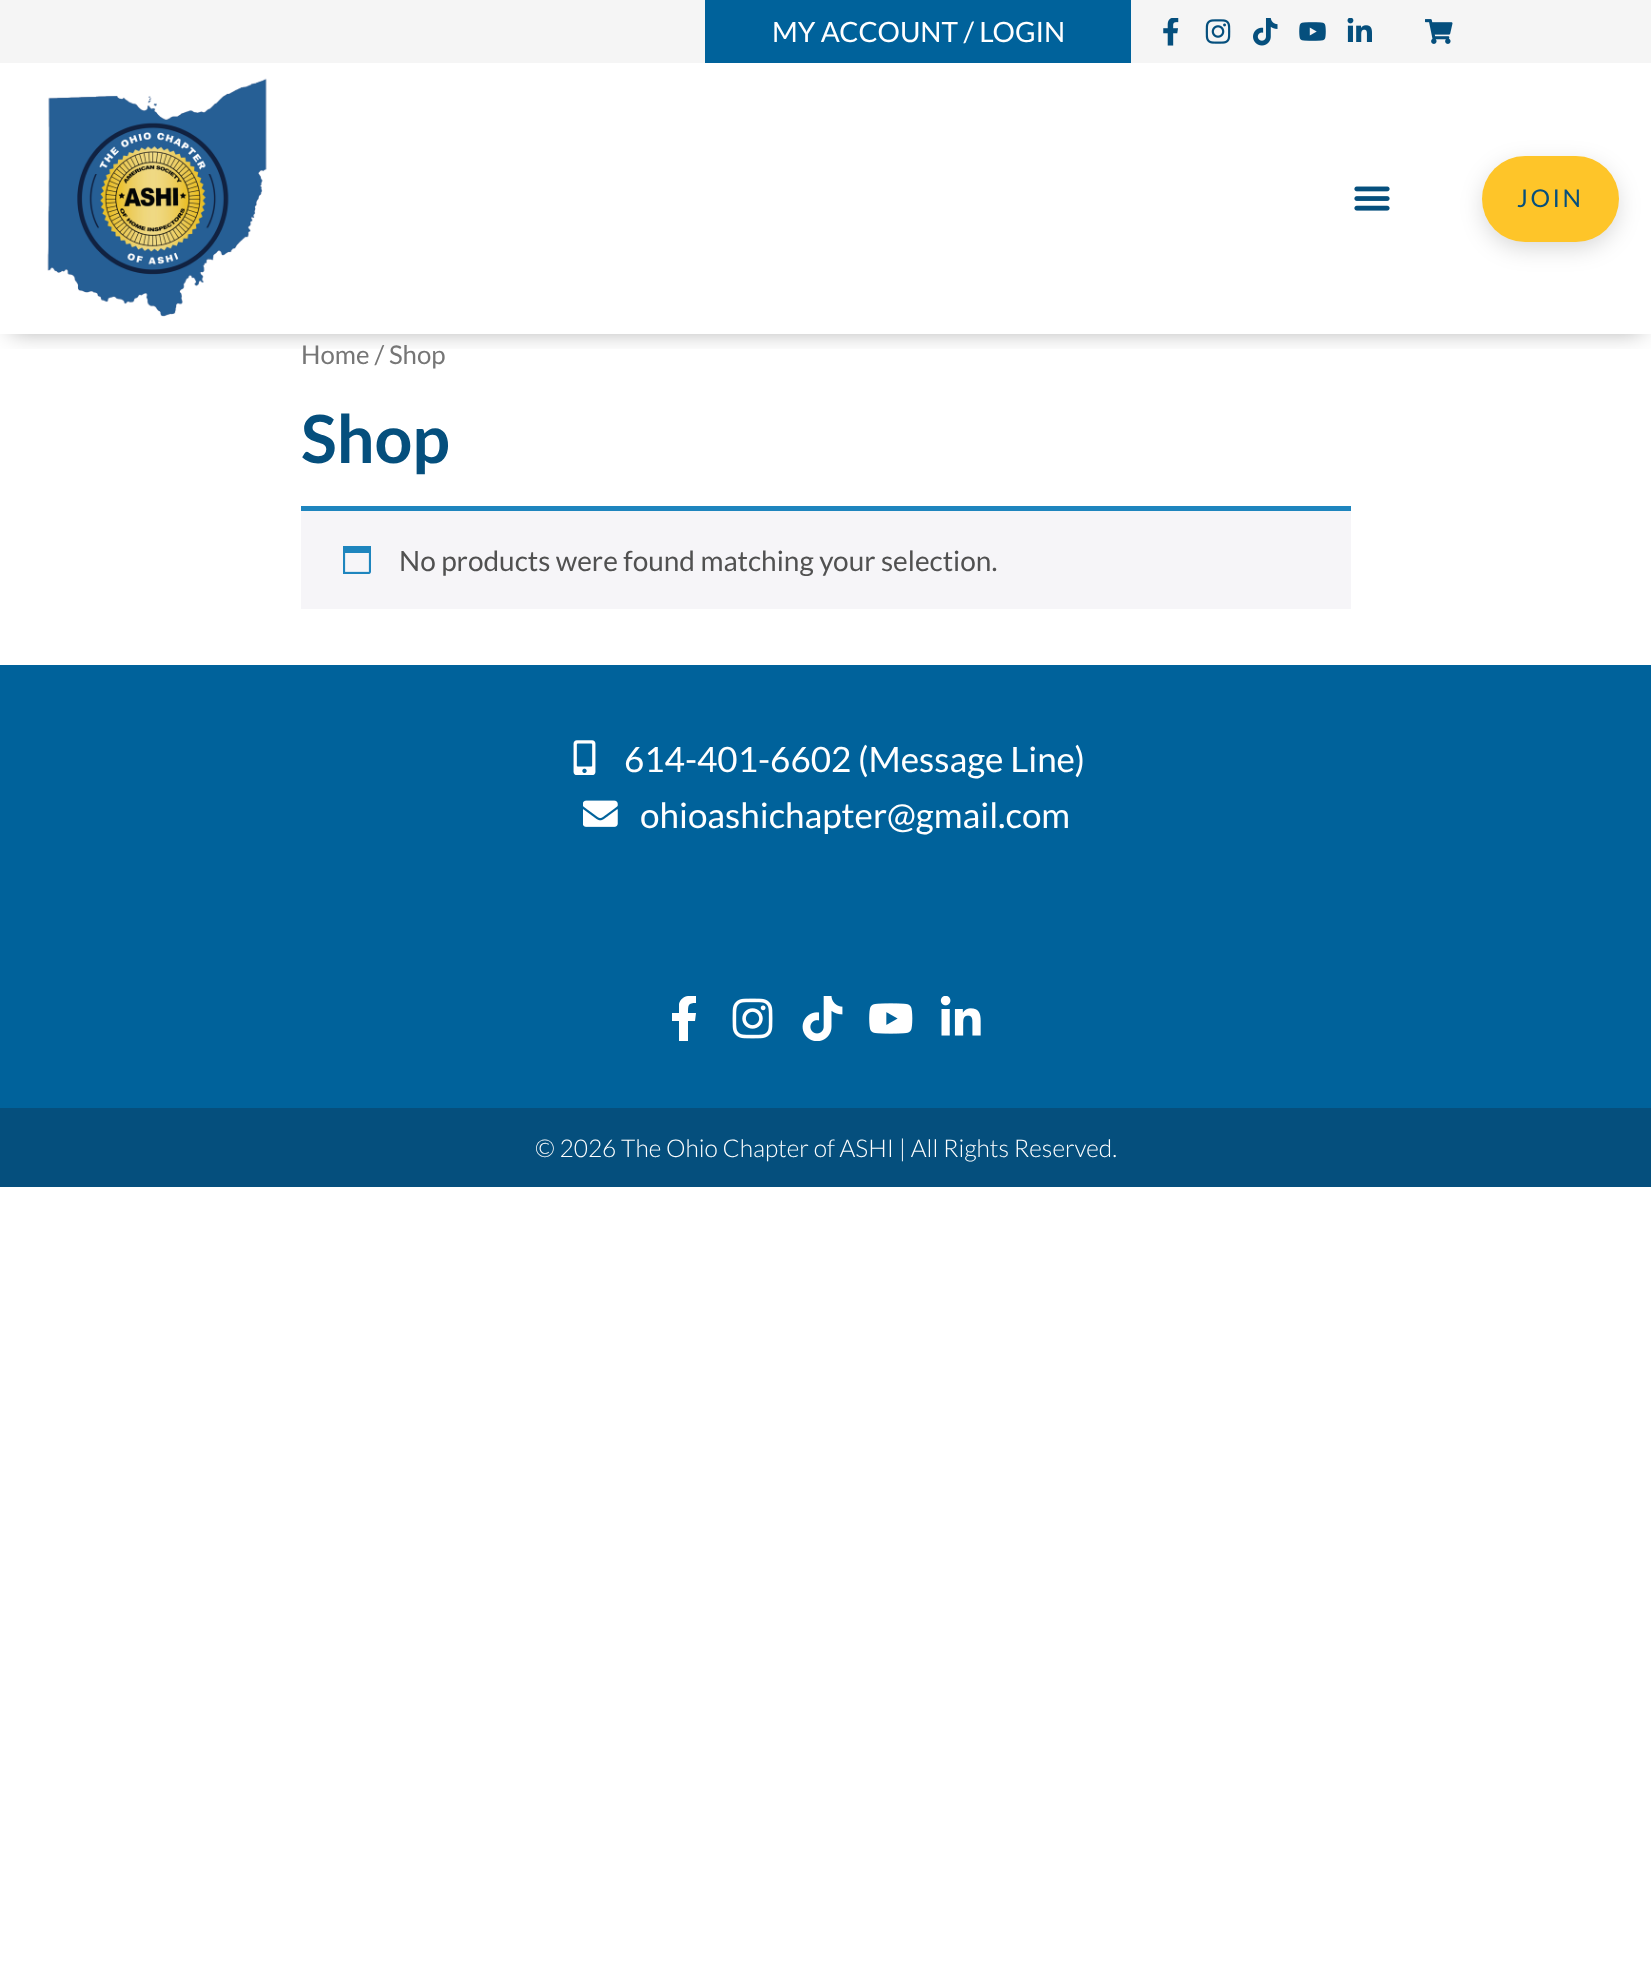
<svg xmlns="http://www.w3.org/2000/svg" xmlns:xlink="http://www.w3.org/1999/xlink" width="1651" height="1983" viewBox="0 0 1651 1983">
<style>
.cls-1{font:28px Lato;fill:#ffffff}
.cls-2{font:24.5px Lato;letter-spacing:2.5px;fill:#054f7d}
.cls-3{font:25.75px Lato;fill:#767676}
.cls-4{font:bold 66.5px Lato;fill:#054f7d}
.cls-5{font:28px Lato;fill:#515151}
.cls-6{font:35px Lato;fill:#ffffff}
.cls-7{font:300 24.5px Lato;fill:#ffffff}
</style>
<defs>
<clipPath id="clip1"><rect x="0" y="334" width="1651" height="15"/></clipPath>
<clipPath id="clip2"><rect x="662" y="996" width="45" height="45"/></clipPath>
</defs>
<rect width="100%" height="100%" fill="#ffffff"/>
<rect fill="#f5f5f5" x="0" y="0" width="1651" height="63"/>
<rect fill="#00629b" x="705" y="0" width="426" height="63"/>
<image xlink:href="image0.png" x="1163" y="18" width="16" height="28"/>
<image xlink:href="image1.png" x="1205" y="19" width="26" height="25"/>
<image xlink:href="image2.png" x="1253" y="18" width="25" height="28"/>
<image xlink:href="image3.png" x="1299" y="22" width="27" height="19"/>
<image xlink:href="image4.png" x="1347" y="18" width="25" height="24"/>
<image xlink:href="image5.png" x="1425" y="19" width="28" height="25"/>
<g clip-path="url(#clip1)">
<rect fill="#000000" fill-opacity="0.35" filter="blur(11.5px)" x="11" y="81" width="1631" height="250"/>
</g>
<image xlink:href="image6.png" x="47" y="78" width="220" height="239"/>
<image xlink:href="image7.png" x="1354" y="186" width="36" height="25"/>
<rect fill="#000000" fill-opacity="0.17" filter="blur(12px)" x="1484" y="165" width="133" height="82" rx="41"/>
<rect fill="#fec529" x="1482" y="156" width="137" height="86" rx="43"/>
<rect fill="#f6f5f8" x="301" y="511" width="1050" height="98"/>
<rect fill="#1e85be" x="301" y="506" width="1050" height="5"/>
<image xlink:href="image8.png" x="343" y="546" width="28" height="28"/>
<rect fill="#00629b" x="0" y="665" width="1651" height="443"/>
<image xlink:href="image9.png" x="573" y="740" width="23" height="35"/>
<image xlink:href="image10.png" x="583" y="800" width="35" height="27"/>
<g clip-path="url(#clip2)">
<path fill="#ffffff" d="M695 1021L696 1013H688C688 1005 688 1003 696 1003V996C689 995 681 996 679 1004V1013H672V1021H679V1041H688V1021Z"/>
</g>
<image xlink:href="image11.png" x="732" y="998" width="41" height="41"/>
<image xlink:href="image12.png" x="802" y="996" width="41" height="45"/>
<image xlink:href="image13.png" x="869" y="1003" width="44" height="31"/>
<image xlink:href="image14.png" x="940" y="996" width="41" height="40"/>
<rect fill="#054f7d" x="0" y="1108" width="1651" height="79"/>
<text class="cls-1" x="772" y="42">MY ACCOUNT / LOGIN</text>
<text class="cls-2" x="1517" y="207">JOIN</text>
<text class="cls-3" x="301" y="364">Home / Shop</text>
<text class="cls-4" x="301" y="463">Shop</text>
<text class="cls-5" x="399" y="571">No products were found matching your selection.</text>
<text class="cls-6" x="624" y="772">614-401-6602 (Message Line)</text>
<text class="cls-6" x="640" y="828">ohioashichapter@gmail.com</text>
<text class="cls-7" x="535" y="1157">© 2026 The Ohio Chapter of ASHI | All Rights Reserved.</text>
</svg>
